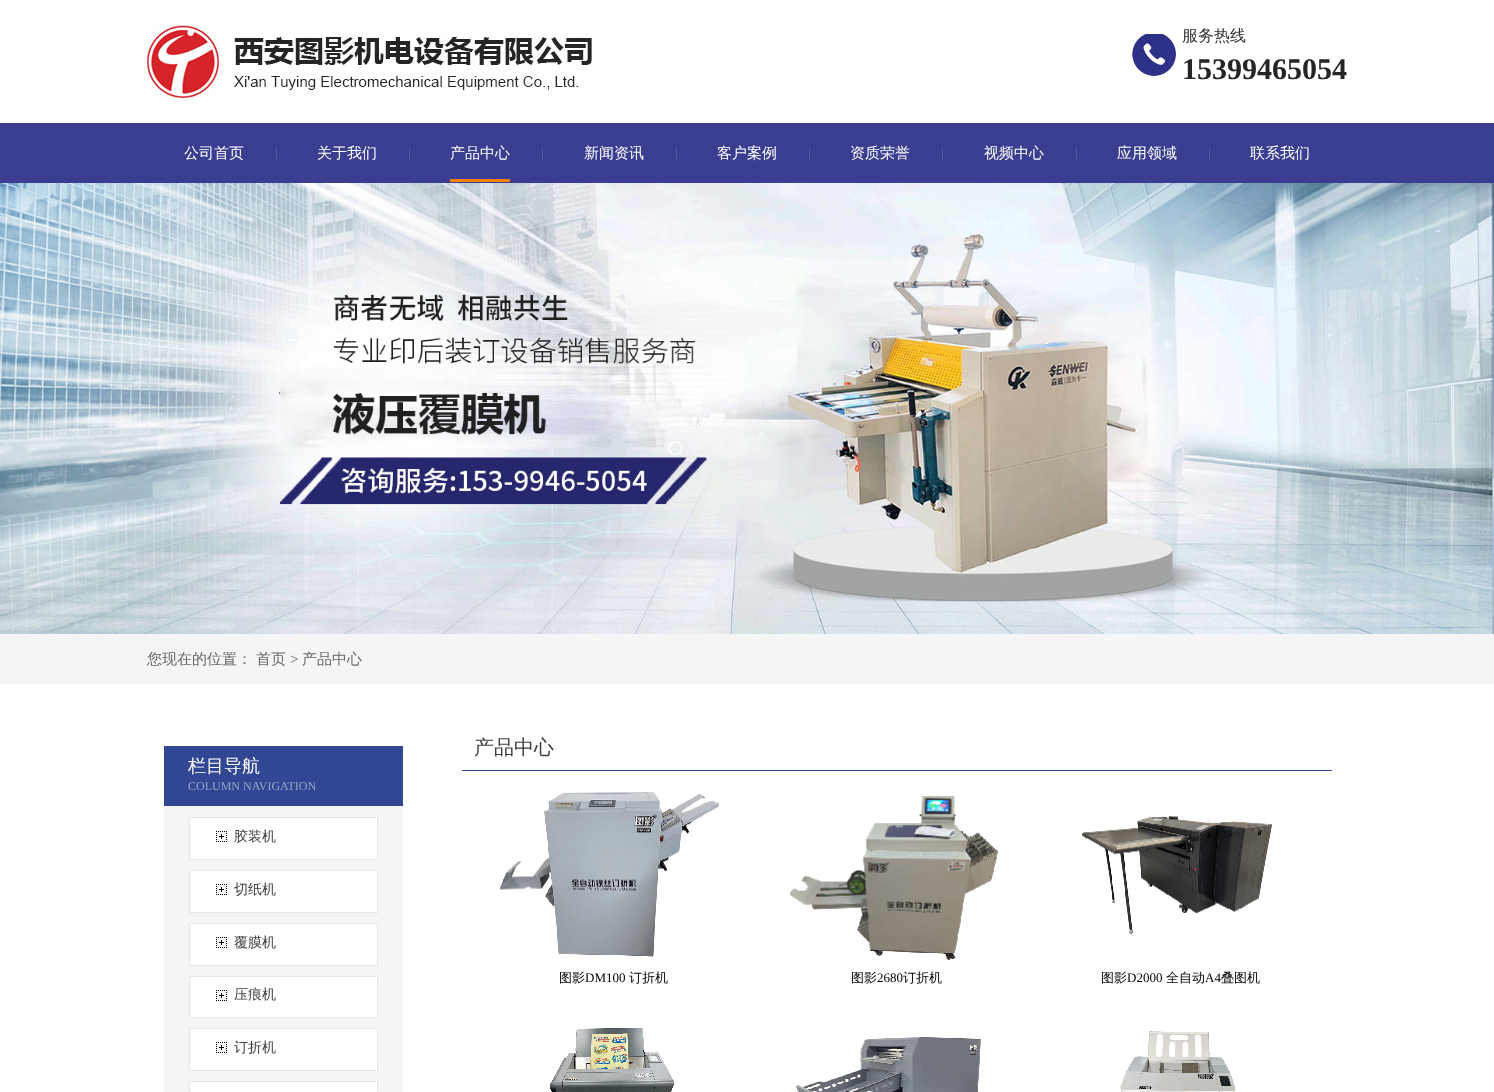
<svg xmlns="http://www.w3.org/2000/svg" xmlns:xlink="http://www.w3.org/1999/xlink" width="1494" height="1092" viewBox="0 0 1494 1092">
<style>
.cls-1{font:500 16px WenQuanYi Zen Hei;fill:#333333}
.cls-2{font:bold 30px Liberation Serif;fill:#252525}
.cls-3{font:500 15px WenQuanYi Zen Hei;fill:#ffffff}
.cls-4{font:14px Liberation Serif;fill:#5d5fa2}
.cls-5{font:500 15px WenQuanYi Zen Hei;fill:#666666}
.cls-6{font:15px Liberation Serif;fill:#666666}
.cls-7{font:500 18px WenQuanYi Zen Hei;fill:#ffffff}
.cls-8{font:12px Liberation Serif;fill:#98a3c9}
.cls-9{font:500 14px WenQuanYi Zen Hei;fill:#3e3d3d}
.cls-10{font:500 20px WenQuanYi Zen Hei;fill:#3e3d3d}
.cls-11{font:500 13px WenQuanYi Zen Hei;fill:#000000}
.cls-12{font:13px Liberation Serif;fill:#000000}
</style>
<rect width="100%" height="100%" fill="#ffffff"/>
<image xlink:href="image0.png" x="147" y="25" width="446" height="73"/>
<image xlink:href="image1.png" x="1132" y="34" width="44" height="42"/>
<rect fill="#3a3d90" x="0" y="123" width="1494" height="60"/>
<rect fill="#f68101" x="450" y="179" width="60" height="3"/>
<image xlink:href="image2.png" x="0" y="183" width="1494" height="451"/>
<rect fill="#f5f5f5" x="0" y="634" width="1494" height="50"/>
<rect fill="#314793" x="164" y="746" width="239" height="60"/>
<rect fill="#f5f5f5" x="164" y="806" width="239" height="286"/>
<rect fill="#ffffff" stroke="#e7e7e7" x="189.5" y="817.5" width="188" height="42"/>
<image xlink:href="image3.png" x="216" y="831" width="11" height="11"/>
<rect fill="#ffffff" stroke="#e7e7e7" x="189.5" y="870.5" width="188" height="42"/>
<image xlink:href="image3.png" x="216" y="884" width="11" height="11"/>
<rect fill="#ffffff" stroke="#e7e7e7" x="189.5" y="923.5" width="188" height="42"/>
<image xlink:href="image3.png" x="216" y="937" width="11" height="11"/>
<rect fill="#ffffff" stroke="#e7e7e7" x="189.5" y="976.5" width="188" height="41"/>
<image xlink:href="image3.png" x="216" y="990" width="11" height="11"/>
<rect fill="#ffffff" stroke="#e7e7e7" x="189.5" y="1028.5" width="188" height="42"/>
<image xlink:href="image3.png" x="216" y="1042" width="11" height="11"/>
<rect fill="#ffffff" stroke="#e7e7e7" x="189.5" y="1081.5" width="188" height="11"/>
<rect fill="#314793" x="462" y="770" width="870" height="1"/>
<image xlink:href="image4.png" x="499" y="792" width="221" height="165"/>
<image xlink:href="image5.png" x="790" y="795" width="208" height="165"/>
<image xlink:href="image6.png" x="1082" y="816" width="190" height="118"/>
<image xlink:href="image7.png" x="550" y="1028" width="124" height="64"/>
<image xlink:href="image8.png" x="796" y="1036" width="185" height="56"/>
<image xlink:href="image9.png" x="1120" y="1031" width="116" height="61"/>
<text class="cls-1" x="1182" y="41">服务热线</text>
<text class="cls-2" x="1182" y="79">15399465054</text>
<text class="cls-3" x="184" y="158">公司首页</text>
<text class="cls-4" x="275" y="157">|</text>
<text class="cls-3" x="317" y="158">关于我们</text>
<text class="cls-4" x="408" y="157">|</text>
<text class="cls-3" x="450" y="158">产品中心</text>
<text class="cls-4" x="541" y="157">|</text>
<text class="cls-3" x="584" y="158">新闻资讯</text>
<text class="cls-4" x="675" y="157">|</text>
<text class="cls-3" x="717" y="158">客户案例</text>
<text class="cls-4" x="808" y="157">|</text>
<text class="cls-3" x="850" y="158">资质荣誉</text>
<text class="cls-4" x="941" y="157">|</text>
<text class="cls-3" x="984" y="158">视频中心</text>
<text class="cls-4" x="1075" y="157">|</text>
<text class="cls-3" x="1117" y="158">应用领域</text>
<text class="cls-4" x="1208" y="157">|</text>
<text class="cls-3" x="1250" y="158">联系我们</text>
<text class="cls-5" x="147" y="664">您现在的位置：</text>
<text class="cls-5" x="256" y="664">首页</text>
<text class="cls-6" x="290" y="664">&gt;</text>
<text class="cls-5" x="302" y="664">产品中心</text>
<text class="cls-7" x="188" y="772">栏目导航</text>
<text class="cls-8" x="188" y="790">COLUMN NAVIGATION</text>
<text class="cls-9" x="234" y="841">胶装机</text>
<text class="cls-9" x="234" y="894">切纸机</text>
<text class="cls-9" x="234" y="947">覆膜机</text>
<text class="cls-9" x="234" y="999">压痕机</text>
<text class="cls-9" x="234" y="1052">订折机</text>
<text class="cls-10" x="474" y="754">产品中心</text>
<text class="cls-11" x="559" y="982">图影</text>
<text class="cls-12" x="585" y="982">DM100</text>
<text class="cls-11" x="629" y="982">订折机</text>
<text class="cls-11" x="851" y="982">图影</text>
<text class="cls-12" x="877" y="982">2680</text>
<text class="cls-11" x="903" y="982">订折机</text>
<text class="cls-11" x="1101" y="982">图影</text>
<text class="cls-12" x="1127" y="982">D2000</text>
<text class="cls-11" x="1166" y="982">全自动</text>
<text class="cls-12" x="1205" y="982">A4</text>
<text class="cls-11" x="1221" y="982">叠图机</text>
</svg>
